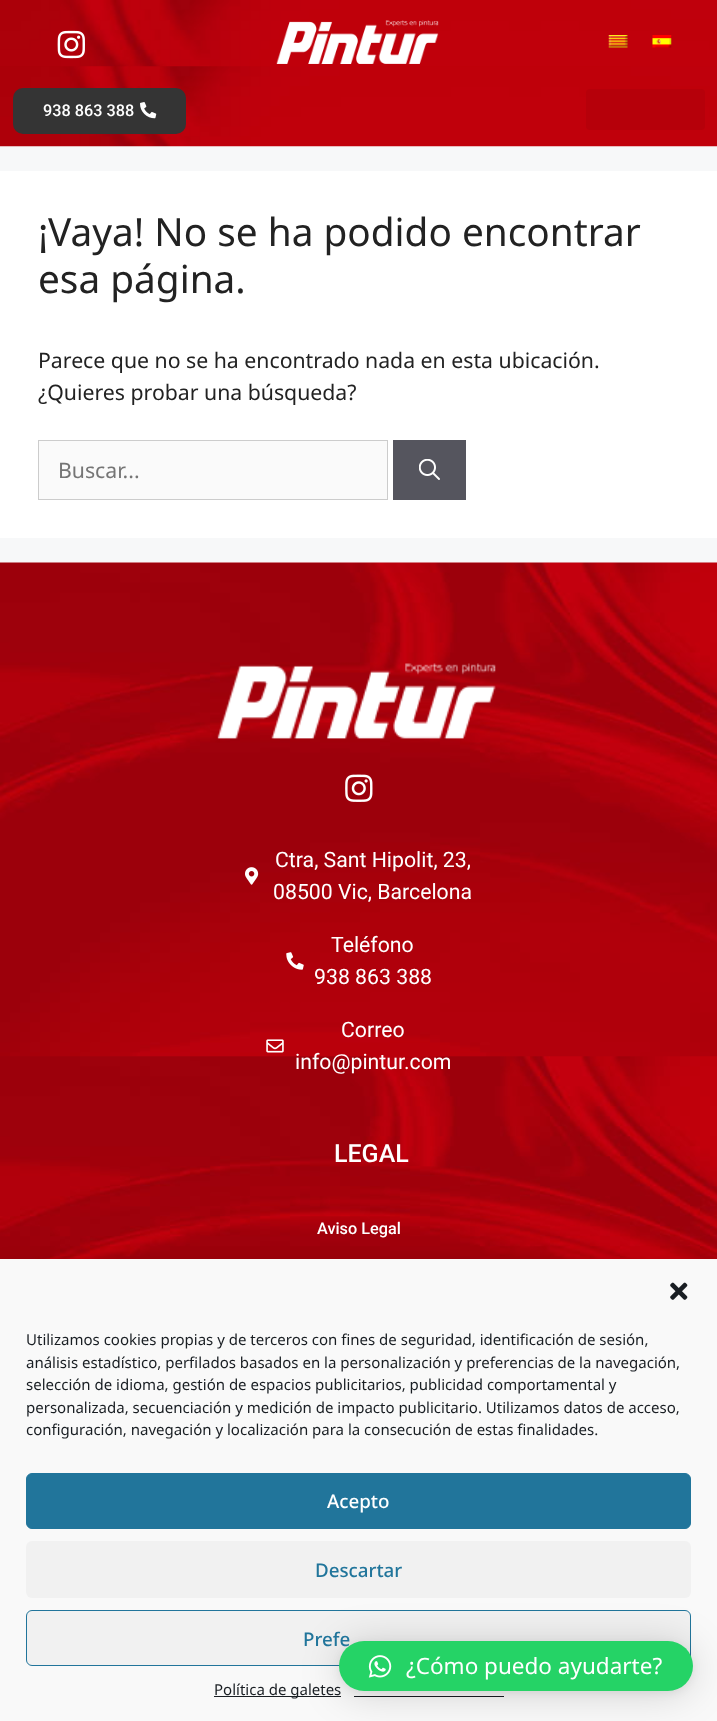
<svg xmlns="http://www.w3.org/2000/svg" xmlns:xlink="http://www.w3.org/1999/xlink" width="717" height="1721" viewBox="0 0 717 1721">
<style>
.cls-1{font:500 16.25px Roboto;fill:#ffffff}
.cls-2{font:38.75px Noto Sans;fill:#222222}
.cls-3{font:21.25px Noto Sans;fill:#222222}
.cls-4{font:21.25px Noto Sans;fill:#757575}
.cls-5{font:21.25px Roboto;fill:#ffffff}
.cls-6{font:500 25px Roboto;fill:#ffffff}
.cls-7{font:15px Noto Sans;fill:#191e23}
.cls-8{font:500 18.75px Noto Sans;fill:#ffffff}
.cls-9{font:500 18.75px Noto Sans;fill:#21759b}
.cls-10{font:22.5px Noto Sans;fill:#ffffff}
</style>
<rect width="100%" height="100%" fill="#f7f8f9"/>
<image xlink:href="image0.png" x="0" y="0" width="717" height="67"/>
<image xlink:href="image1.png" x="57" y="30" width="28" height="29"/>
<image xlink:href="image2.png" x="276" y="20" width="163" height="44"/>
<image xlink:href="image3.png" x="608" y="35" width="20" height="13"/>
<image xlink:href="image4.png" x="652" y="35" width="20" height="13"/>
<image xlink:href="image5.png" x="0" y="66" width="717" height="81"/>
<rect fill="#343434" x="13" y="88" width="173" height="46" rx="10"/>
<image xlink:href="image6.png" x="140" y="102" width="17" height="17"/>
<rect fill="#b6000a" x="586" y="89" width="119" height="41" rx="4"/>
<rect fill="#ffffff" x="0" y="171" width="717" height="367"/>
<rect fill="#fafafa" stroke="#cccccc" x="38.5" y="440.5" width="349" height="59"/>
<rect fill="#55555e" x="393" y="440" width="73" height="60"/>
<image xlink:href="image7.png" x="419" y="459" width="21" height="21"/>
<image xlink:href="image8.png" x="0" y="562" width="717" height="697"/>
<image xlink:href="image9.png" x="217" y="663" width="279" height="76"/>
<image xlink:href="image10.png" x="345" y="774" width="28" height="28"/>
<image xlink:href="image11.png" x="245" y="867" width="14" height="18"/>
<image xlink:href="image12.png" x="286" y="952" width="18" height="18"/>
<image xlink:href="image13.png" x="266" y="1039" width="18" height="14"/>
<rect fill="#000000" fill-opacity="0.19" filter="blur(12.5px)" x="0" y="1271" width="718" height="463"/>
<rect fill="#f9f9f9" x="0" y="1259" width="717" height="462"/>
<image xlink:href="image14.png" x="670" y="1282" width="18" height="18"/>
<rect fill="#21759b" stroke="#21759b" x="26.5" y="1473.5" width="664" height="55" rx="5.5"/>
<rect fill="#f1f1f1" x="26" y="1541" width="665" height="57" rx="6"/>
<rect fill="#f1f1f1" stroke="#21759b" x="26.5" y="1610.5" width="664" height="55" rx="5.5"/>
<rect fill="#191e23" x="214" y="1696" width="127" height="1"/>
<rect fill="#191e23" x="354" y="1696" width="150" height="1"/>
<rect fill="#000000" fill-opacity="0.16" filter="blur(20px)" x="339" y="1644" width="354" height="50" rx="25"/>
<rect fill="#000000" fill-opacity="0.06" filter="blur(4px)" x="339" y="1643" width="354" height="50" rx="25"/>
<text class="cls-1" x="43" y="116">938 863 388</text>
<text class="cls-2"><tspan x="38" y="246">¡Vaya! No se ha podido encontrar</tspan><tspan x="38" y="293">esa página.</tspan></text>
<text class="cls-3"><tspan x="38" y="368">Parece que no se ha encontrado nada en esta ubicación.</tspan><tspan x="38" y="400">¿Quieres probar una búsqueda?</tspan></text>
<text class="cls-4" x="58" y="478">Buscar...</text>
<text class="cls-5" x="275" y="867">Ctra, Sant Hipolit, 23,</text>
<text class="cls-5" x="273" y="899">08500 Vic, Barcelona</text>
<text class="cls-5" x="331" y="952">Teléfono</text>
<text class="cls-5" x="314" y="984">938 863 388</text>
<text class="cls-5" x="341" y="1037">Correo</text>
<text class="cls-5" x="295" y="1069">info@pintur.com</text>
<text class="cls-6" x="334" y="1162">LEGAL</text>
<text class="cls-1" x="317" y="1234">Aviso Legal</text>
<text class="cls-7"><tspan x="26" y="1345">Utilizamos cookies propias y de terceros con fines de seguridad, identificación de sesión,</tspan><tspan x="26" y="1368">análisis estadístico, perfilados basados en la personalización y preferencias de la navegación,</tspan><tspan x="26" y="1390">selección de idioma, gestión de espacios publicitarios, publicidad comportamental y</tspan><tspan x="26" y="1413">personalizada, secuenciación y medición de impacto publicitario. Utilizamos datos de acceso,</tspan><tspan x="26" y="1435">configuración, navegación y localización para la consecución de estas finalidades.</tspan></text>
<text class="cls-8" x="327" y="1508">Acepto</text>
<text class="cls-9" x="315" y="1577">Descartar</text>
<text class="cls-9" x="303" y="1646">Prefe</text>
<text class="cls-7" x="214" y="1695">Política de galetes</text>
<rect fill="#25d366" x="339" y="1641" width="354" height="50" rx="25"/>
<image xlink:href="image15.png" x="368" y="1655" width="24" height="23"/>
<text class="cls-10" x="406" y="1674">¿Cómo puedo ayudarte?</text>
</svg>
